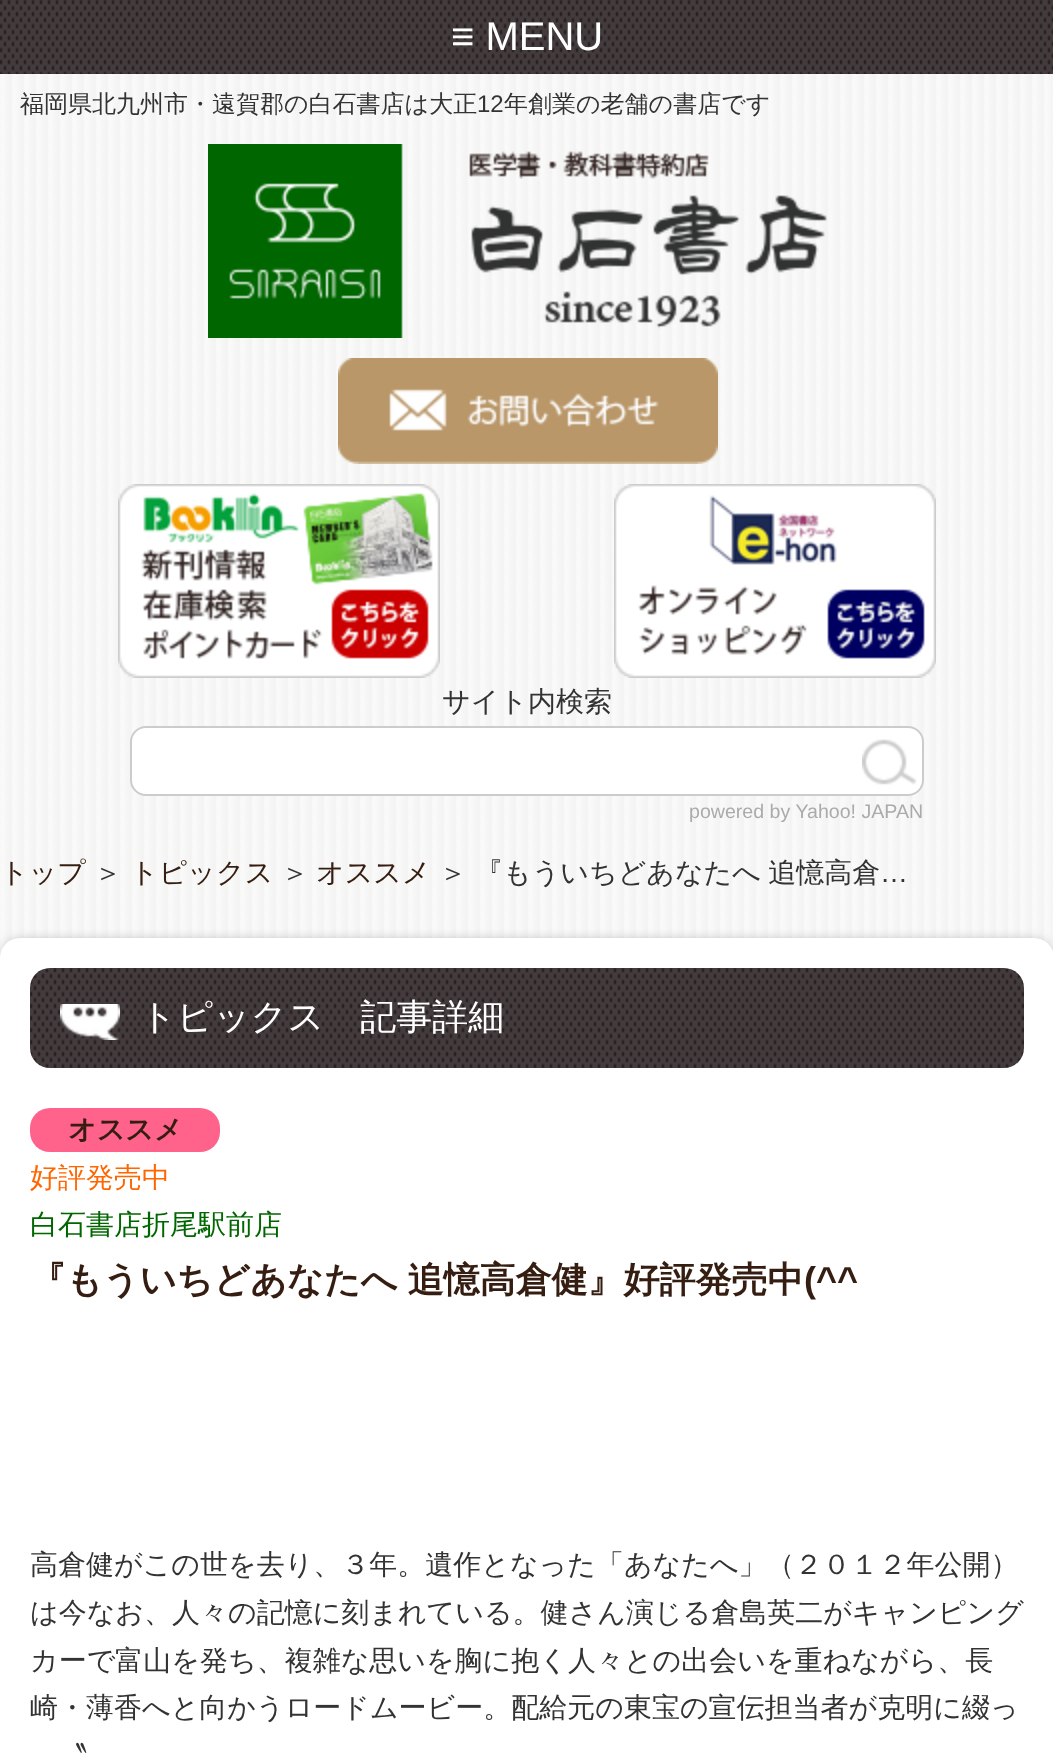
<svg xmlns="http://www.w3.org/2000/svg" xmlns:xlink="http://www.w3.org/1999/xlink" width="1053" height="1758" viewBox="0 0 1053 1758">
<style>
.cls-1{font:40px Liberation Sans;fill:#ffffff}
.cls-2{font:500 24px WenQuanYi Zen Hei;fill:#333333}
.cls-3{font:24px Liberation Sans;fill:#333333}
.cls-4{font:500 28px WenQuanYi Zen Hei;fill:#333333}
.cls-5{font:19.6px Liberation Sans;fill:#ababab}
.cls-6{font:500 28px WenQuanYi Zen Hei;fill:#351e11}
.cls-7{font:28px Liberation Sans;fill:#333333}
.cls-8{font:500 36px WenQuanYi Zen Hei;fill:#ffffff}
.cls-9{font:bold 28px WenQuanYi Zen Hei;fill:#351e11}
.cls-10{font:500 28px WenQuanYi Zen Hei;fill:#ff6600}
.cls-11{font:500 28px WenQuanYi Zen Hei;fill:#006600}
.cls-12{font:bold 36px WenQuanYi Zen Hei;fill:#351e11}
.cls-13{font:bold 36px Liberation Sans;fill:#351e11}
</style>
<rect width="100%" height="100%" fill="#ffffff"/>
<image xlink:href="image0.png" x="0" y="74" width="1053" height="884"/>
<image xlink:href="image1.png" x="0" y="0" width="1053" height="74"/>
<image xlink:href="image2.png" x="208" y="144" width="619" height="194"/>
<image xlink:href="image3.png" x="338" y="358" width="380" height="106"/>
<image xlink:href="image4.png" x="118" y="484" width="322" height="194"/>
<image xlink:href="image5.png" x="614" y="484" width="322" height="194"/>
<rect fill="#ffffff" stroke="#cccccc" stroke-width="2" x="131" y="727" width="792" height="68" rx="15"/>
<image xlink:href="image6.png" x="862" y="739" width="55" height="46"/>
<rect fill="#767473" filter="blur(7px)" x="6" y="944" width="1042" height="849" rx="14"/>
<rect fill="#ffffff" x="0" y="938" width="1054" height="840" rx="20"/>
<image xlink:href="image7.png" x="30" y="968" width="994" height="100"/>
<image xlink:href="image8.png" x="60" y="1004" width="60" height="36"/>
<rect fill="#ff638c" x="30" y="1108" width="190" height="44" rx="20"/>
<text class="cls-1" x="451" y="50">≡ MENU</text>
<text class="cls-2" x="20" y="112">福岡県北九州市・遠賀郡の白石書店は大正</text>
<text class="cls-3" x="477" y="112">12</text>
<text class="cls-2" x="504" y="112">年創業の老舗の書店です</text>
<text class="cls-4" x="442" y="711">サイト内検索</text>
<text class="cls-5" x="689" y="818">powered by Yahoo! JAPAN</text>
<text class="cls-6" x="0" y="882">トップ</text>
<text class="cls-4" x="94" y="882">＞</text>
<text class="cls-6" x="130" y="882">トピックス</text>
<text class="cls-4" x="281" y="882">＞</text>
<text class="cls-6" x="316" y="882">オススメ</text>
<text class="cls-4" x="439" y="882">＞</text>
<text class="cls-4" x="475" y="882" word-spacing="-1">『もういちどあなたへ 追憶高倉</text>
<text class="cls-7" x="880" y="882">…</text>
<text class="cls-8" x="140" y="1029">トピックス　記事詳細</text>
<text class="cls-9" x="68" y="1139">オススメ</text>
<text class="cls-10" x="30" y="1187">好評発売中</text>
<text class="cls-11" x="30" y="1234">白石書店折尾駅前店</text>
<text class="cls-12" x="30" y="1292" word-spacing="-1">『もういちどあなたへ 追憶高倉健』好評発売中</text>
<text class="cls-13" x="804" y="1292">(^^</text>
<text class="cls-4"><tspan x="30" y="1574">高倉健がこの世を去り、３年。遺作となった「あなたへ」（２０１２年公開）</tspan><tspan x="30" y="1622">は今なお、人々の記憶に刻まれている。健さん演じる倉島英二がキャンピング</tspan><tspan x="30" y="1670">カーで富山を発ち、複雑な思いを胸に抱く人々との出会いを重ねながら、長</tspan><tspan x="30" y="1717">崎・薄香へと向かうロードムービー。配給元の東宝の宣伝担当者が克明に綴っ</tspan></text>
<text class="cls-4" x="59" y="1765">〝</text>
</svg>
